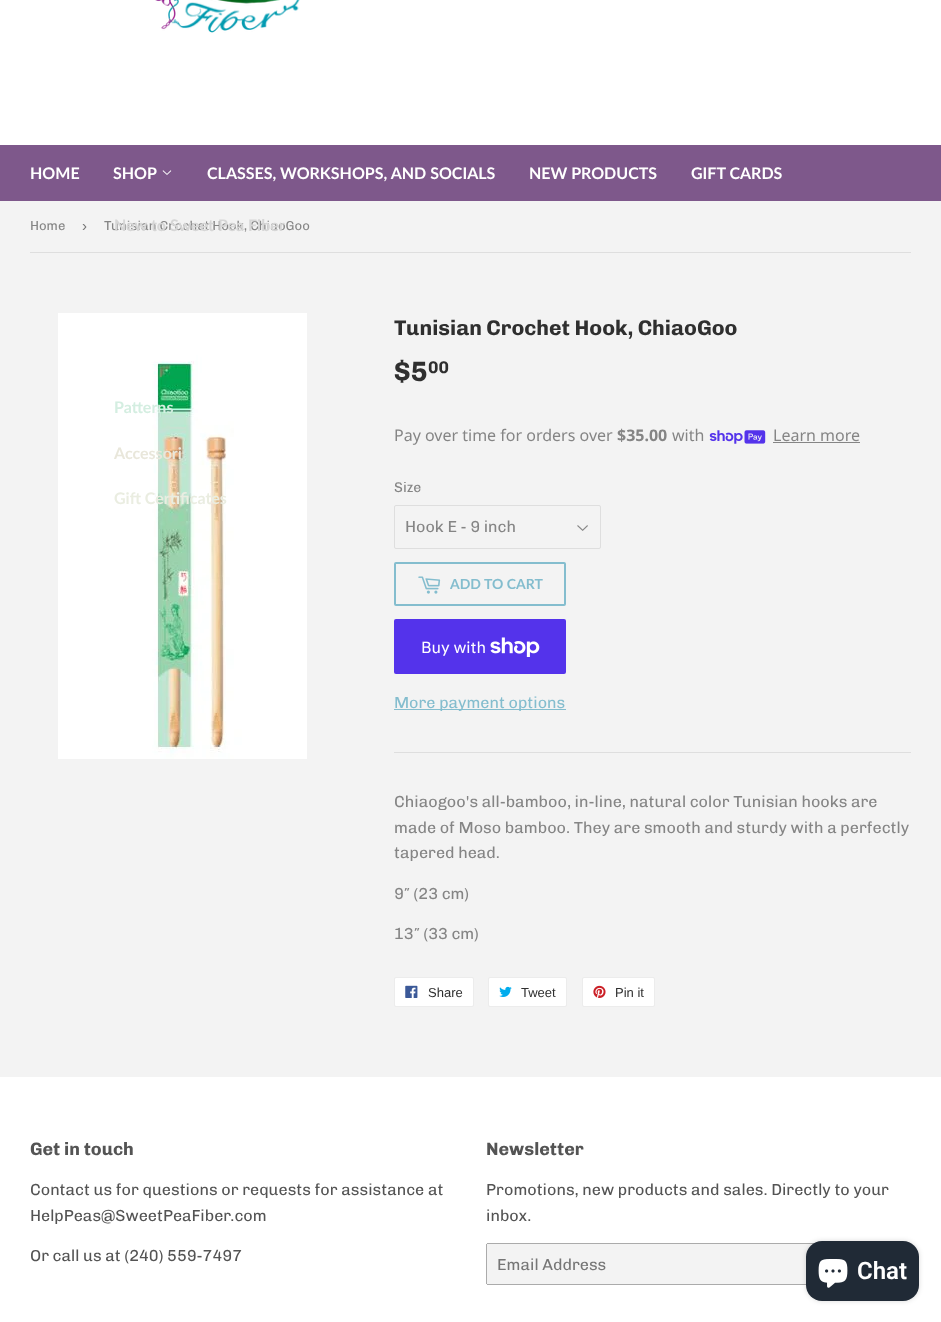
<svg xmlns="http://www.w3.org/2000/svg" xmlns:xlink="http://www.w3.org/1999/xlink" width="941" height="1322" viewBox="0 0 941 1322">
<style>
.cls-1{font:bold 16px Lato;fill:#ffffff}
.cls-2{font:bold 16px Lato;fill:#d4eee1}
.cls-3{font:bold 16px Lato;fill:#e9e7db}
.cls-4{font:bold 16px Lato;fill:#eaede1}
.cls-5{font:13px Chivo;fill:#858585}
.cls-6{font:15px Liberation Sans;fill:#767676}
.cls-7{font:bold 16px Lato;fill:#d6d6d6}
.cls-8{font:bold 21.3px Chivo;fill:#2f2f2f}
.cls-9{font:bold 28px Chivo;fill:#2f2f2f}
.cls-10{font:bold 17px Chivo;fill:#2f2f2f}
.cls-11{font:16px Noto Sans;fill:#858585}
.cls-12{font:bold 16px Noto Sans;fill:#858585}
.cls-13{font:14px Chivo;fill:#858585}
.cls-14{font:16px Chivo;fill:#858585}
.cls-15{font:bold 14px Lato;fill:#84bdce}
.cls-16{font:16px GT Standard;fill:#ffffff}
.cls-17{font:16px Chivo;fill:#84bdce}
.cls-18{font:13px Liberation Sans;fill:#2f2f2f}
.cls-19{font:bold 18px Chivo;fill:#545454}
.cls-20{font:16px Chivo;fill:#545454}
.cls-21{font:16px Chivo;fill:#767676}
.cls-22{font:600 24px Roboto;fill:#ffffff}
</style>
<rect width="100%" height="100%" fill="#f3f3f3"/>
<rect fill="#ffffff" x="0" y="0" width="941" height="145"/>
<image xlink:href="image0.png" x="155" y="0" width="145" height="33"/>
<rect fill="#7e588b" x="0" y="145" width="941" height="56"/>
<image xlink:href="image1.png" x="162" y="170" width="10" height="5"/>
<rect fill="#dedede" x="30" y="252" width="881" height="1"/>
<image xlink:href="image2.png" x="58" y="313" width="249" height="446"/>
<image xlink:href="image3.png" x="709" y="430" width="57" height="14"/>
<rect fill="#858585" x="773" y="442" width="87" height="1"/>
<image xlink:href="image4.png" x="577" y="525" width="11" height="6"/>
<rect fill="none" stroke="#dedede" x="394.5" y="505.5" width="206" height="43" rx="1.5"/>
<rect fill="none" stroke="#84bdce" stroke-width="2" x="395" y="563" width="170" height="42" rx="1"/>
<image xlink:href="image5.png" x="418" y="576" width="23" height="18"/>
<rect fill="#5433eb" x="394" y="619" width="172" height="55" rx="2"/>
<image xlink:href="image6.png" x="490" y="637" width="50" height="20"/>
<rect fill="#84bdce" x="394" y="709" width="172" height="1"/>
<rect fill="#dedede" x="394" y="752" width="517" height="1"/>
<rect fill="#ffffff" stroke="#ececec" x="394.5" y="977.5" width="79" height="29" rx="1.5"/>
<image xlink:href="image7.png" x="405" y="985" width="13" height="13"/>
<rect fill="#ffffff" stroke="#ececec" x="488.5" y="977.5" width="78" height="29" rx="1.5"/>
<image xlink:href="image8.png" x="499" y="986" width="13" height="11"/>
<rect fill="#ffffff" stroke="#ececec" x="582.5" y="977.5" width="72" height="29" rx="1.5"/>
<image xlink:href="image9.png" x="593" y="985" width="13" height="13"/>
<rect fill="#ffffff" x="0" y="1077" width="941" height="245"/>
<rect fill="#f3f3f3" x="486" y="1243" width="352" height="42" rx="2"/>
<rect fill="#ababab" x="487" y="1243" width="328" height="1"/>
<rect fill="#ababab" x="487" y="1284" width="319" height="1"/>
<rect fill="#ababab" x="486" y="1244" width="1" height="40"/>
<rect fill="#000000" fill-opacity="0.15" filter="blur(2.5px)" x="806" y="1241" width="113" height="60" rx="16"/>
<rect fill="#202a36" x="806" y="1241" width="113" height="60" rx="16"/>
<image xlink:href="image10.png" x="818" y="1259" width="30" height="29"/>
<text class="cls-1" x="30" y="179">HOME</text>
<text class="cls-1" x="113" y="179">SHOP</text>
<text class="cls-2" x="114" y="413">Patterns</text>
<text class="cls-3" x="114" y="459">Accessori</text>
<text class="cls-4" x="114" y="504">Gift Certificates</text>
<text class="cls-1" x="207" y="179">CLASSES, WORKSHOPS, AND SOCIALS</text>
<text class="cls-1" x="529" y="179">NEW PRODUCTS</text>
<text class="cls-1" x="691" y="179">GIFT CARDS</text>
<text class="cls-5" x="30" y="230">Home</text>
<text class="cls-6" x="82" y="231">›</text>
<text class="cls-5" x="104" y="230">Tunisian Crochet Hook, ChiaoGoo</text>
<text class="cls-7" x="114" y="231">New to Sweet Pea Fiber</text>
<text class="cls-8" x="394" y="335">Tunisian Crochet Hook, ChiaoGoo</text>
<text class="cls-9" x="394" y="381">$5</text>
<text class="cls-10" x="428" y="373">00</text>
<text class="cls-11" x="394" y="441">Pay over time for orders over</text>
<text class="cls-12" x="617" y="441">$35.00</text>
<text class="cls-11" x="672" y="441">with</text>
<text class="cls-11" x="773" y="441">Learn more</text>
<text class="cls-13" x="394" y="492">Size</text>
<text class="cls-14" x="405" y="532">Hook E - 9 inch</text>
<text class="cls-15" x="450" y="589">ADD TO CART</text>
<text class="cls-16" x="421" y="653">Buy with</text>
<text class="cls-17" x="394" y="708">More payment options</text>
<text class="cls-14"><tspan x="394" y="807">Chiaogoo's all-bamboo, in-line, natural color Tunisian hooks are</tspan><tspan x="394" y="833">made of Moso bamboo. They are smooth and sturdy with a perfectly</tspan><tspan x="394" y="858">tapered head.</tspan></text>
<text class="cls-14" x="394" y="899">9″ (23 cm)</text>
<text class="cls-14" x="394" y="939">13″ (33 cm)</text>
<text class="cls-18" x="428" y="997">Share</text>
<text class="cls-18" x="521" y="997">Tweet</text>
<text class="cls-18" x="615" y="997">Pin it</text>
<text class="cls-19" x="30" y="1155">Get in touch</text>
<text class="cls-20"><tspan x="30" y="1195">Contact us for questions or requests for assistance at</tspan><tspan x="30" y="1221">HelpPeas@SweetPeaFiber.com</tspan></text>
<text class="cls-20" x="30" y="1261">Or call us at (240) 559-7497</text>
<text class="cls-19" x="486" y="1155">Newsletter</text>
<text class="cls-20"><tspan x="486" y="1195">Promotions, new products and sales. Directly to your</tspan><tspan x="486" y="1221">inbox.</tspan></text>
<text class="cls-21" x="497" y="1270">Email Address</text>
<text class="cls-22" x="857" y="1279">Chat</text>
</svg>
